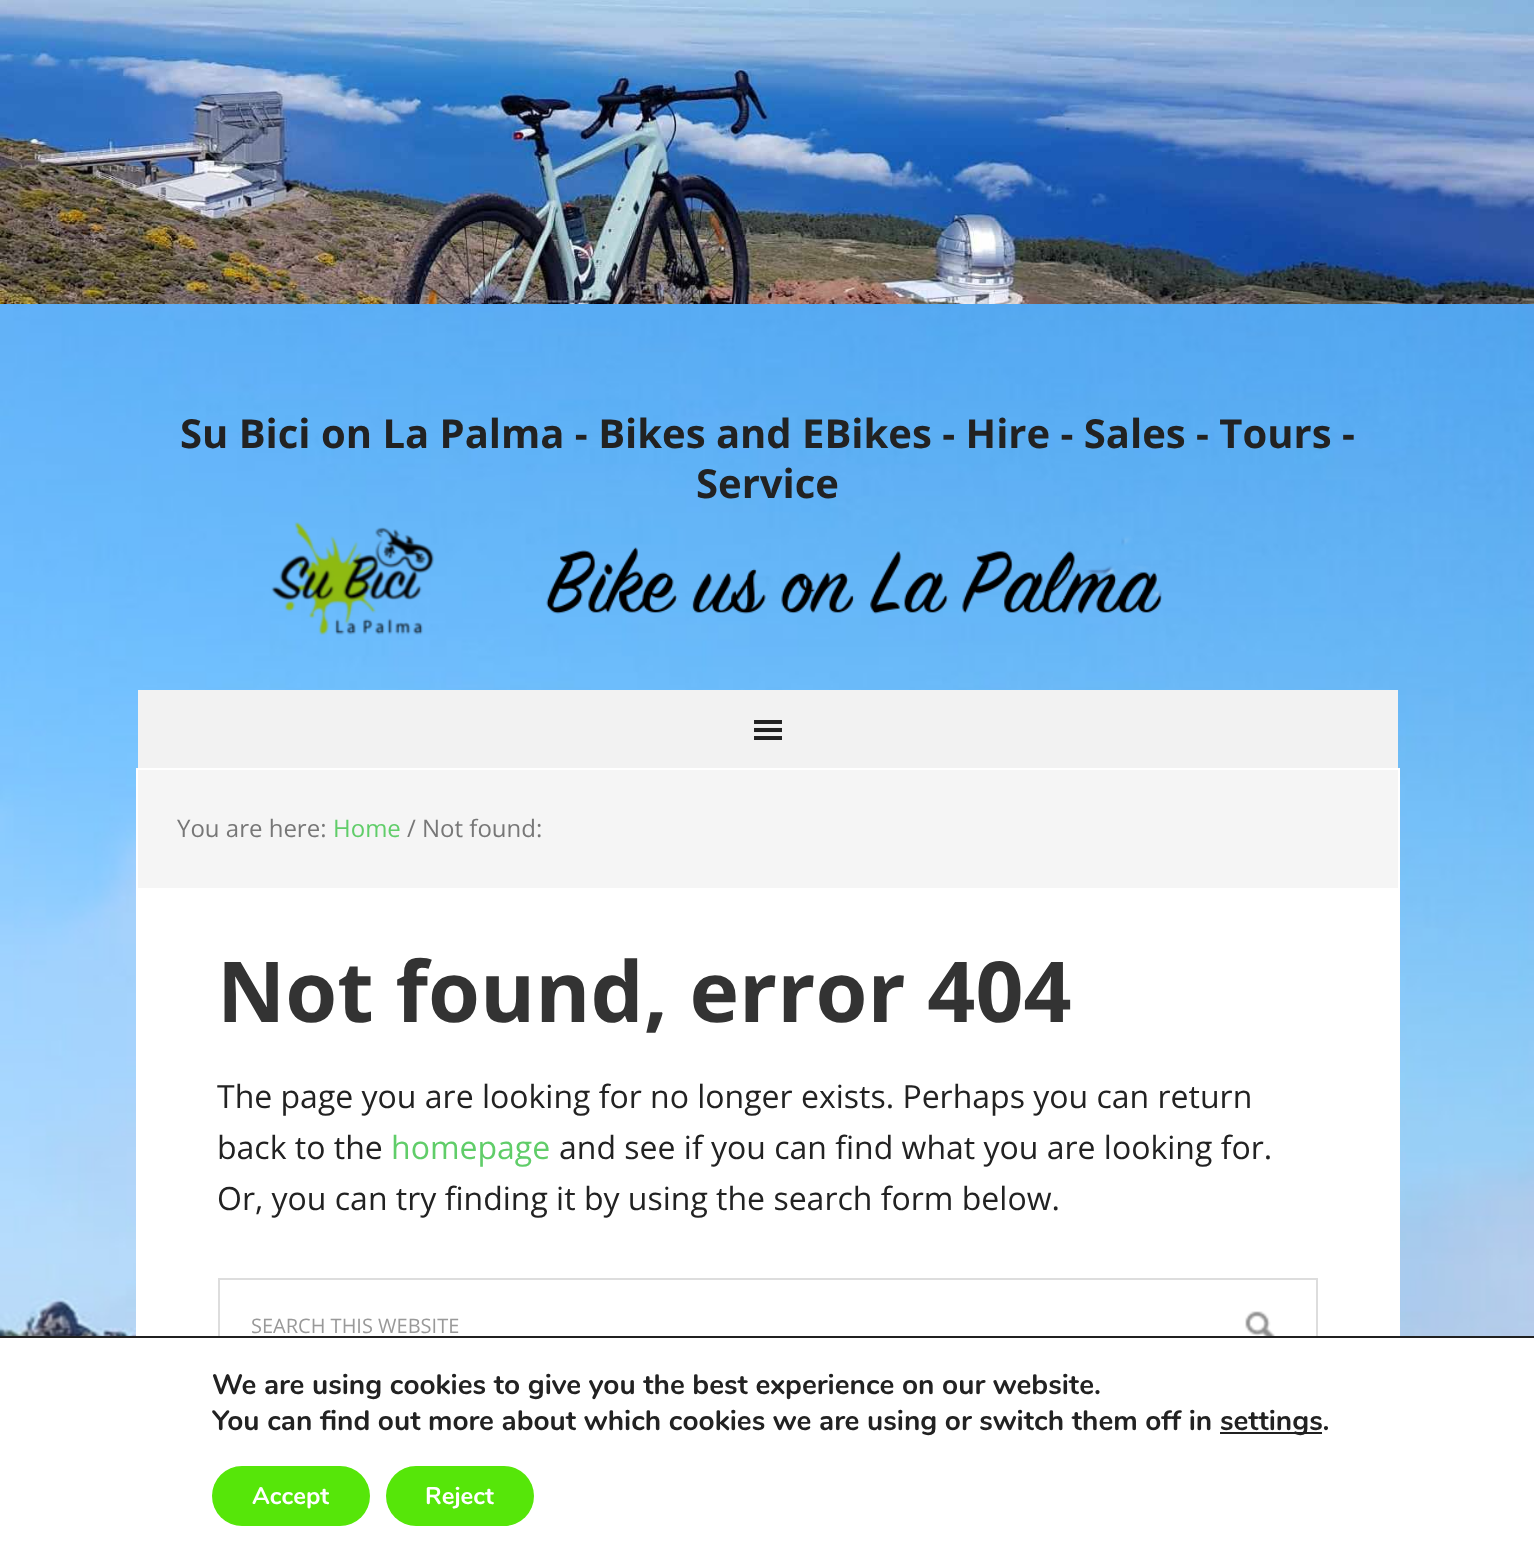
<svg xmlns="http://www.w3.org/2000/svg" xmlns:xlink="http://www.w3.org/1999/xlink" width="1534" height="1561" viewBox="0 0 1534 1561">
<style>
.cls-1{font:bold 40px Open Sans;fill:#222222}
.cls-2{font:24px Open Sans;fill:#777777}
.cls-3{font:24px Open Sans;fill:#60cd69}
.cls-4{font:bold 84px Open Sans;fill:#333333}
.cls-5{font:32px Open Sans;fill:#222222}
.cls-6{font:32px Open Sans;fill:#60cd69}
.cls-7{font:20px Open Sans;fill:#999999}
.cls-8{font:bold 28px Nunito;fill:#222222}
.cls-9{font:bold 24px Nunito;fill:#ffffff}
</style>
<rect width="100%" height="100%" fill="#ffffff"/>
<image xlink:href="image0.png" x="0" y="304" width="1534" height="1032"/>
<image xlink:href="image1.png" x="0" y="0" width="1534" height="304"/>
<image xlink:href="image2.png" x="271" y="522" width="891" height="113"/>
<rect fill="#f2f2f2" x="138" y="690" width="1260" height="78"/>
<image xlink:href="image3.png" x="754" y="720" width="28" height="20"/>
<rect fill="none" stroke="#ffffff" stroke-width="2" x="137" y="769" width="1262" height="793"/>
<rect fill="#ffffff" x="138" y="888" width="1260" height="448"/>
<rect fill="#f5f5f5" x="138" y="770" width="1260" height="118"/>
<image xlink:href="image4.png" x="1245" y="1311" width="30" height="25"/>
<rect fill="none" stroke="#dddddd" stroke-width="2" x="219" y="1279" width="1098" height="94"/>
<rect fill="#ffffff" x="218" y="1338" width="1100" height="36"/>
<rect fill="#202020" x="0" y="1336" width="1534" height="2"/>
<rect fill="#202020" x="1220" y="1432" width="102" height="2"/>
<rect fill="#56e609" x="212" y="1466" width="158" height="60" rx="30"/>
<rect fill="#56e609" x="386" y="1466" width="148" height="60" rx="30"/>
<text class="cls-1" x="180" y="448">Su Bici on La Palma - Bikes and EBikes - Hire - Sales - Tours -</text>
<text class="cls-1" x="696" y="498">Service</text>
<text class="cls-2" x="177" y="837">You are here:</text>
<text class="cls-3" x="333" y="837">Home</text>
<text class="cls-2" x="407" y="837">/ Not found:</text>
<text class="cls-4" x="217" y="1022">Not found, error 404</text>
<text class="cls-5"><tspan x="217" y="1108">The page you are looking for no longer exists. Perhaps you can return</tspan><tspan x="217" y="1159">back to the</tspan></text>
<text class="cls-6" x="391" y="1159">homepage</text>
<text class="cls-5" x="559" y="1159">and see if you can find what you are looking for.</text>
<text class="cls-5" x="217" y="1210">Or, you can try finding it by using the search form below.</text>
<text class="cls-7" x="251" y="1333">SEARCH THIS WEBSITE</text>
<text class="cls-8"><tspan x="212" y="1394">We are using cookies to give you the best experience on our website.</tspan><tspan x="212" y="1430">You can find out more about which cookies we are using or switch them off in</tspan></text>
<text class="cls-8" x="1220" y="1430">settings.</text>
<text class="cls-9" x="252" y="1504">Accept</text>
<text class="cls-9" x="425" y="1504">Reject</text>
</svg>
